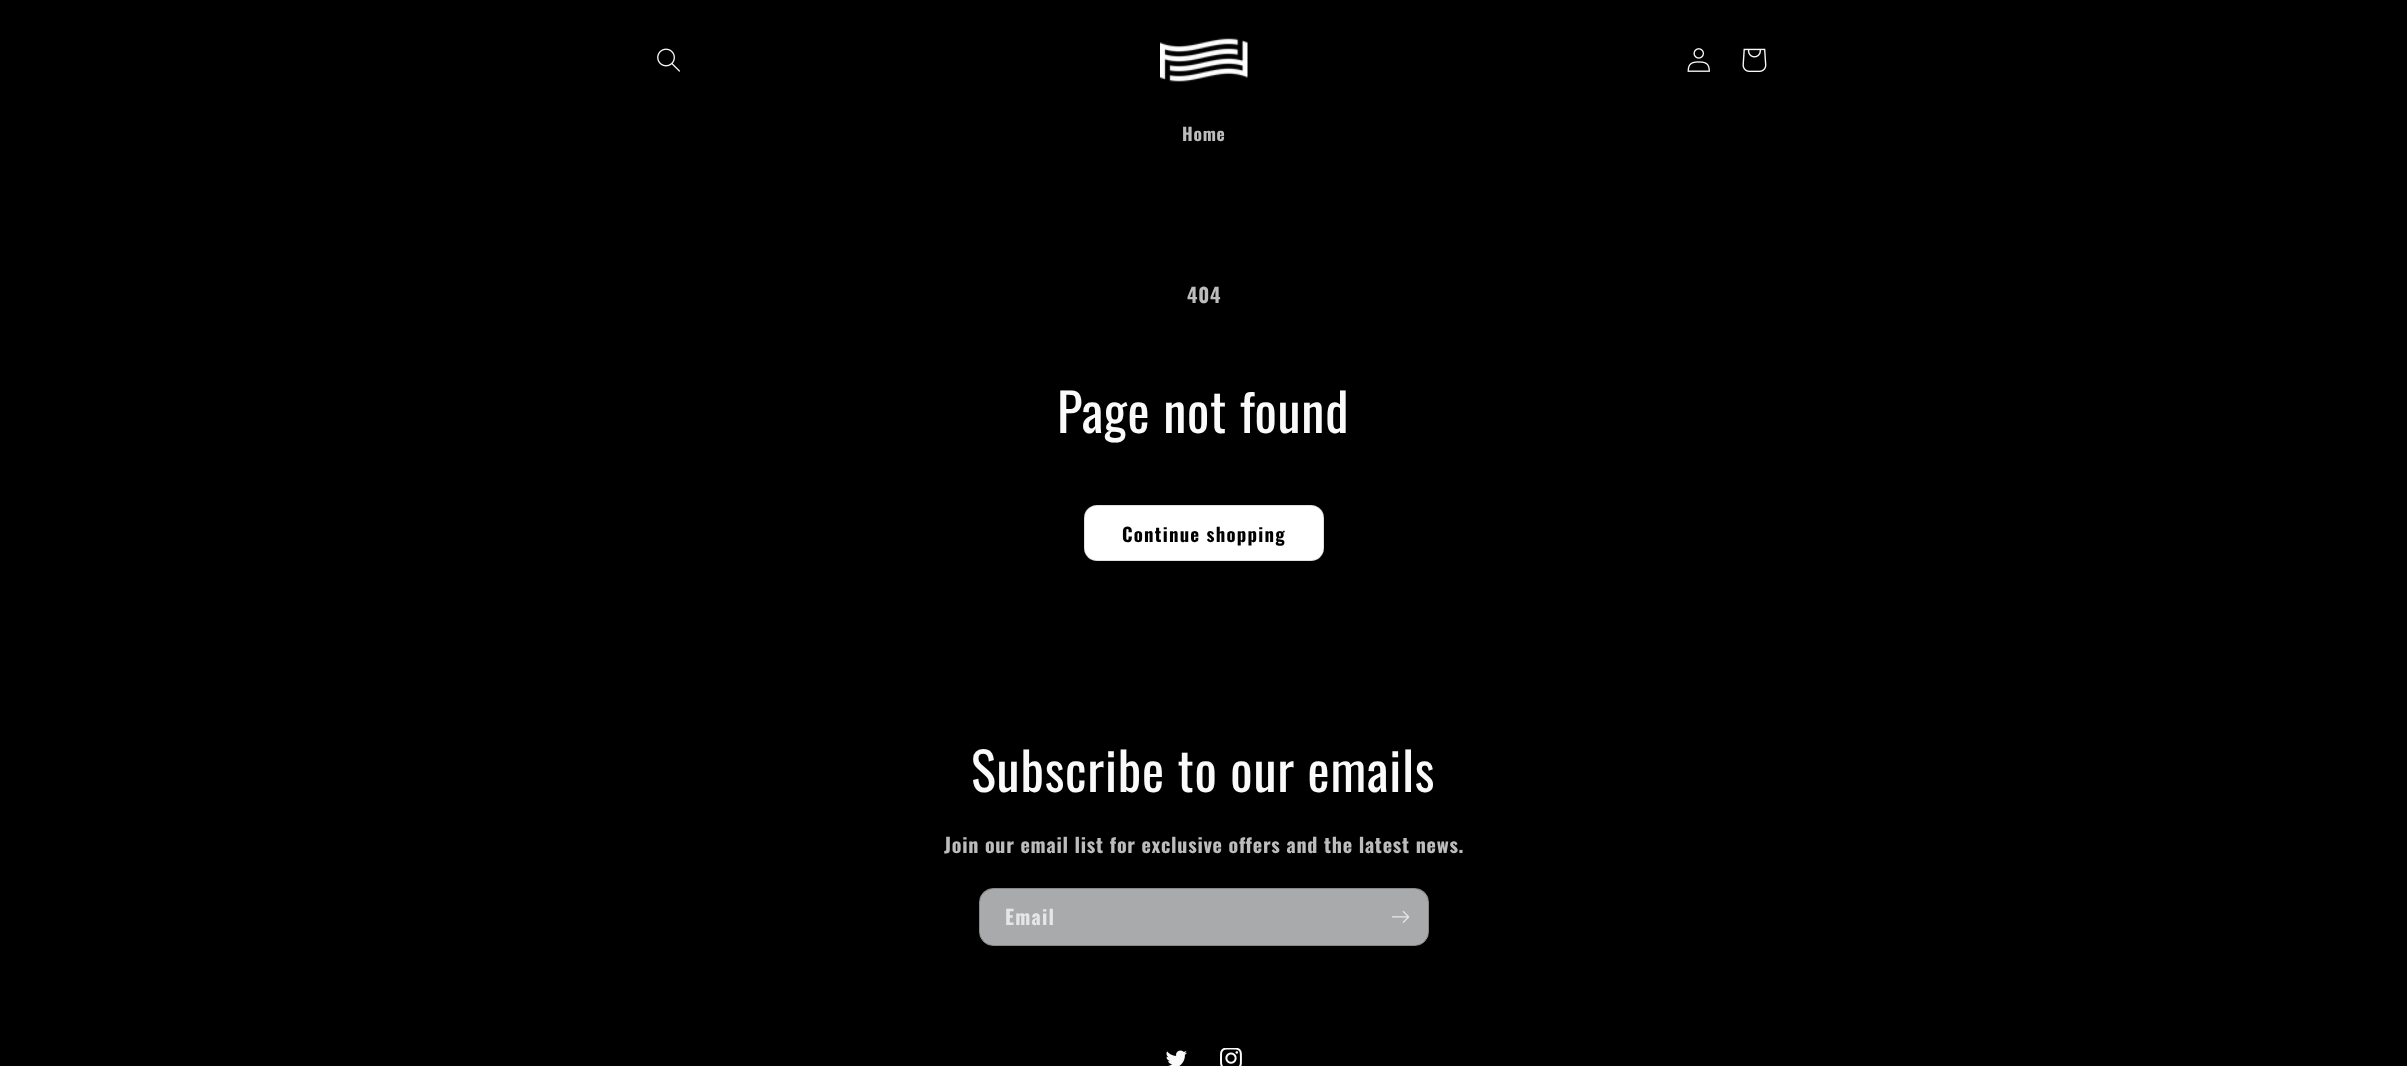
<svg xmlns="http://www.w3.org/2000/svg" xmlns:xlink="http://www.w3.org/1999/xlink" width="2407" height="1066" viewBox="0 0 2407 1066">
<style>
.cls-1{font:bold 17.5px Oswald;letter-spacing:0.75px;fill:#bcbcbc}
.cls-2{font:bold 20px Oswald;letter-spacing:0.75px;fill:#bcbcbc}
.cls-3{font:52.5px Oswald;letter-spacing:0.75px;fill:#fafafa}
.cls-4{font:bold 18.75px Oswald;letter-spacing:1.25px;fill:#000000}
.cls-5{font:bold 20px Oswald;letter-spacing:1.25px;fill:#e6e6e6}
</style>
<rect width="100%" height="100%" fill="#000000"/>
<image xlink:href="image0.png" x="657" y="48" width="23" height="24"/>
<image xlink:href="image1.png" x="1160" y="38" width="88" height="44"/>
<image xlink:href="image2.png" x="1687" y="48" width="23" height="24"/>
<image xlink:href="image3.png" x="1742" y="48" width="25" height="24"/>
<rect fill="#ffffff" x="1084" y="505" width="240" height="56" rx="13"/>
<rect fill="none" stroke="#000000" stroke-opacity="0.45" stroke-width="0.4" x="1084.2" y="505.2" width="239.6" height="55.6" rx="12.8"/>
<rect fill="#a9aaab" x="980" y="889" width="448" height="56" rx="13"/>
<rect fill="none" stroke="#fafafa" stroke-opacity="0.55" x="979.5" y="888.5" width="449" height="57" rx="13.5"/>
<image xlink:href="image4.png" x="1392" y="910" width="18" height="13"/>
<image xlink:href="image5.png" x="1166" y="1050" width="21" height="16"/>
<image xlink:href="image6.png" x="1220" y="1048" width="22" height="18"/>
<text class="cls-1" x="1182" y="141">Home</text>
<text class="cls-2" x="1187" y="303">404</text>
<text class="cls-3" x="1057" y="433">Page not found</text>
<text class="cls-4" x="1122" y="542">Continue shopping</text>
<text class="cls-3" x="971" y="792">Subscribe to our emails</text>
<text class="cls-2" x="944" y="853">Join our email list for exclusive offers and the latest news.</text>
<text class="cls-5" x="1005" y="925">Email</text>
</svg>
